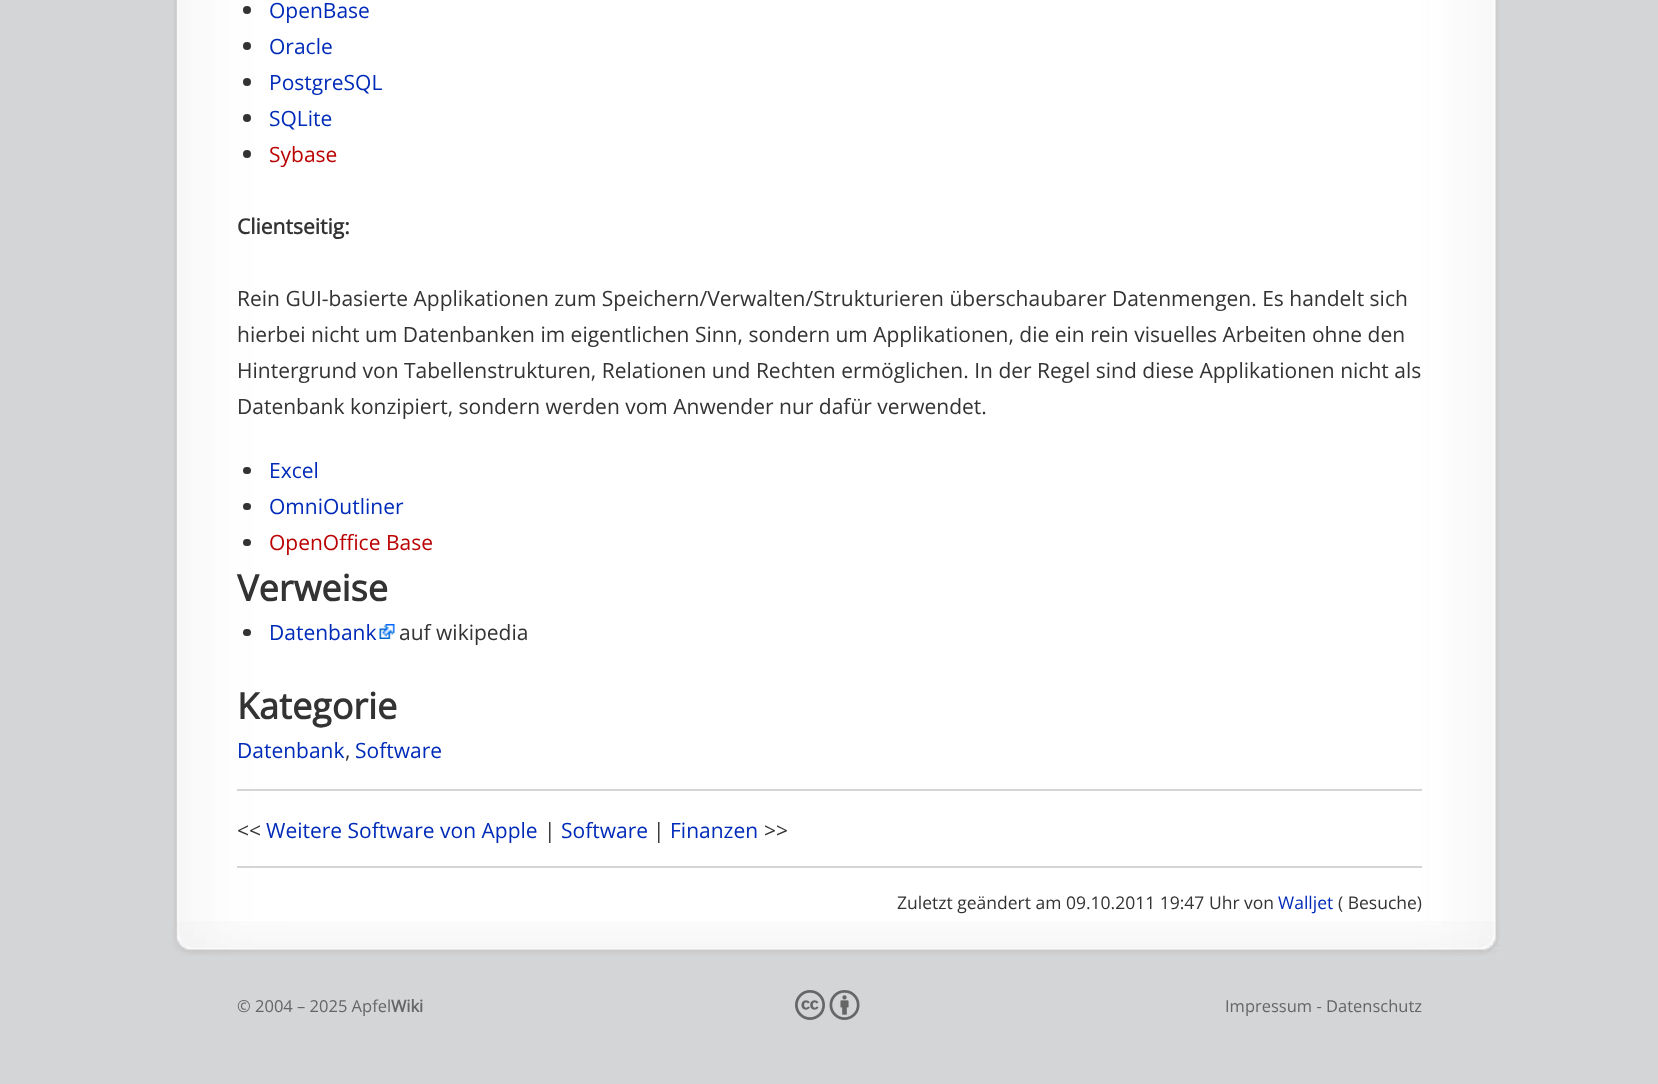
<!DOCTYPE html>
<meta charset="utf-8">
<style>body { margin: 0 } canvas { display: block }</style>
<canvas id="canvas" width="1658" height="1084"></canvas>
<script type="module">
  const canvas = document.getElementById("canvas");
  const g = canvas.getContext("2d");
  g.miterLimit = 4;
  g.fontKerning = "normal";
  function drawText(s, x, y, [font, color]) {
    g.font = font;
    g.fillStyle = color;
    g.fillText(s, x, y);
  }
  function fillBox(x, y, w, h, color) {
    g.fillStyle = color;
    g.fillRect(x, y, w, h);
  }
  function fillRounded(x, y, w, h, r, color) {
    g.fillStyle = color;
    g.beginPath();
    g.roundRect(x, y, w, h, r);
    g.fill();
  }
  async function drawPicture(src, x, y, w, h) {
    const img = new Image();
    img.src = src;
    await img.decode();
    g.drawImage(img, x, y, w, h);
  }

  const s1 = ["21px Open Sans", "#002BB8"];
  const s2 = ["21px Open Sans", "#BA0000"];
  const s3 = ["bold 21px Open Sans", "#333333"];
  const s4 = ["21px Open Sans", "#333333"];
  const s5 = ["bold 36px Open Sans", "#333333"];
  const s6 = ["17.5px Open Sans", "#333333"];
  const s7 = ["17.5px Open Sans", "#002BB8"];
  const s8 = ["16.5px Open Sans", "#666666"];
  const s9 = ["bold 16.5px Open Sans", "#666666"];

  fillBox(0, 0, 1658, 1084, "#D4D5D7");
  await drawPicture("pic1.png", 173, 0, 1327, 921);
  g.fillStyle = "#333333";
  g.beginPath();
  g.arc(247, 10, 4, 0, Math.PI * 2);
  g.fill();
  drawText("OpenBase", 269, 18, s1);
  g.fillStyle = "#333333";
  g.beginPath();
  g.arc(247, 46, 4, 0, Math.PI * 2);
  g.fill();
  drawText("Oracle", 269, 54, s1);
  g.fillStyle = "#333333";
  g.beginPath();
  g.arc(247, 82, 4, 0, Math.PI * 2);
  g.fill();
  drawText("PostgreSQL", 269, 90, s1);
  g.fillStyle = "#333333";
  g.beginPath();
  g.arc(247, 118, 4, 0, Math.PI * 2);
  g.fill();
  drawText("SQLite", 269, 126, s1);
  g.fillStyle = "#333333";
  g.beginPath();
  g.arc(247, 154, 4, 0, Math.PI * 2);
  g.fill();
  drawText("Sybase", 269, 162, s2);
  drawText("Clientseitig:", 237, 234, s3);
  drawText("Rein GUI-basierte Applikationen zum Speichern/Verwalten/Strukturieren überschaubarer Datenmengen. Es handelt sich", 237, 306, s4);
  drawText("hierbei nicht um Datenbanken im eigentlichen Sinn, sondern um Applikationen, die ein rein visuelles Arbeiten ohne den", 237, 342, s4);
  drawText("Hintergrund von Tabellenstrukturen, Relationen und Rechten ermöglichen. In der Regel sind diese Applikationen nicht als", 237, 378, s4);
  drawText("Datenbank konzipiert, sondern werden vom Anwender nur dafür verwendet.", 237, 414, s4);
  fillRounded(243, 467, 8, 7, 3.5, "#333333");
  drawText("Excel", 269, 478, s1);
  fillRounded(243, 503, 8, 7, 3.5, "#333333");
  drawText("OmniOutliner", 269, 514, s1);
  fillRounded(243, 539, 8, 7, 3.5, "#333333");
  drawText("OpenOffice Base", 269, 550, s2);
  drawText("Verweise", 237, 601, s5);
  fillRounded(243, 629, 8, 7, 3.5, "#333333");
  drawText("Datenbank", 269, 640, s1);
  await drawPicture("pic2.png", 379, 624, 16, 15);
  drawText("auf wikipedia", 399, 640, s4);
  drawText("Kategorie", 237, 719, s5);
  drawText("Datenbank", 237, 758, s1);
  drawText(",", 345, 758, s4);
  drawText("Software", 355, 758, s1);
  fillBox(237, 789, 1185, 2, "#D4D5D7");
  drawText("<<", 237, 838, s4);
  drawText("Weitere Software von Apple", 266, 838, s1);
  drawText("|", 544, 838, s4);
  drawText("Software", 561, 838, s1);
  drawText("|", 653, 838, s4);
  drawText("Finanzen", 670, 838, s1);
  drawText(">>", 764, 838, s4);
  fillBox(237, 866, 1185, 2, "#D4D5D7");
  drawText("Zuletzt geändert am 09.10.2011 19:47 Uhr", 897, 909, s6);
  drawText("von", 1244, 909, s6);
  drawText("Walljet", 1278, 909, s7);
  drawText("( Besuche)", 1338, 909, s6);
  await drawPicture("pic3.png", 172, 921, 1328, 35);
  drawText("© 2004 – 2025 Apfel", 237, 1012, s8);
  drawText("Wiki", 391, 1012, s9);
  await drawPicture("pic4.png", 795, 990, 65, 30);
  drawText("Impressum - Datenschutz", 1225, 1012, s8);
</script>
